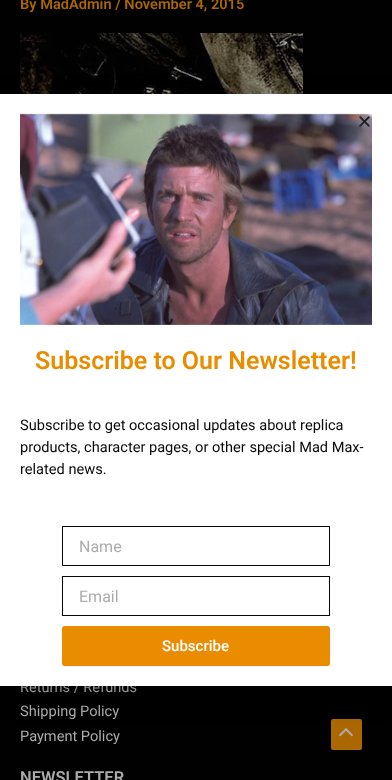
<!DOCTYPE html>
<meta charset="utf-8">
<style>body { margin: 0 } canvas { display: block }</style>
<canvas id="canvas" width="392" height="780"></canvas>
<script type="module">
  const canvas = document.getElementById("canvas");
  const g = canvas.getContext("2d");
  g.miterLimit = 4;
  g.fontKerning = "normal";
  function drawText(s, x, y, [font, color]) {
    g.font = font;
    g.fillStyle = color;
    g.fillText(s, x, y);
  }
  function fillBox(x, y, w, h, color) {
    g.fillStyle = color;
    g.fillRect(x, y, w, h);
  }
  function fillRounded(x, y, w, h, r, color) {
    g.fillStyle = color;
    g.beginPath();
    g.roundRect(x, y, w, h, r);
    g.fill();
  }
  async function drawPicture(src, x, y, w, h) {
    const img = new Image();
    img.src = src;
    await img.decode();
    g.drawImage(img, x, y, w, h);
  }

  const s1 = ["600 14.6px Roboto", "#AB6701"];
  const s2 = ["14.6px Roboto", "#ACACAC"];
  const s3 = ["600 16.5px Roboto", "#ACACAC"];
  const s4 = ["600 25px Roboto", "#E98C00"];
  const s5 = ["14.6px Roboto", "#0A0A0A"];
  const s6 = ["16px Roboto", "#ACACAC"];
  const s7 = ["500 15px Roboto", "#FFFFFF"];

  fillBox(0, 0, 392, 780, "#010101");
  drawText("By MadAdmin / November 4, 2015", 20, 9, s1);
  await drawPicture("pic1.png", 20, 33, 283, 61);
  drawText("Returns / Refunds", 20, 692, s2);
  drawText("Shipping Policy", 20, 716, s2);
  drawText("Payment Policy", 20, 741, s2);
  drawText("NEWSLETTER", 20, 783, s3);
  fillRounded(331, 719, 31, 31, 2, "#AB6701");
  await drawPicture("pic4.png", 339, 728, 15, 9);
  g.fillStyle = "rgba(0, 0, 0, 0.2)";
  g.filter = "blur(11.5px)";
  g.beginPath();
  g.rect(-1, 99, 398, 598);
  g.fill();
  g.filter = "none";
  fillBox(0, 94, 392, 592, "#FFFFFF");
  await drawPicture("pic3.png", 20, 113, 352, 212);
  await drawPicture("pic2.png", 359, 116, 11, 11);
  drawText("Subscribe to Our Newsletter!", 35, 369, s4);
  drawText("Subscribe to get occasional updates about replica", 20, 430, s5);
  drawText("products, character pages, or other special Mad Max-", 20, 452, s5);
  drawText("related news.", 20, 474, s5);
  g.strokeStyle = "#070707";
  g.strokeRect(62.5, 526.5, 267, 39);
  drawText("Name", 79, 552, s6);
  g.strokeRect(62.5, 576.5, 267, 39);
  drawText("Email", 79, 602, s6);
  g.fillStyle = "rgba(0, 0, 0, 0.05)";
  g.filter = "blur(1px)";
  g.beginPath();
  g.roundRect(62, 627, 268, 40, 3);
  g.fill();
  g.filter = "none";
  fillRounded(62, 626, 268, 40, 3, "#E98C00");
  drawText("Subscribe", 162, 651, s7);
</script>
